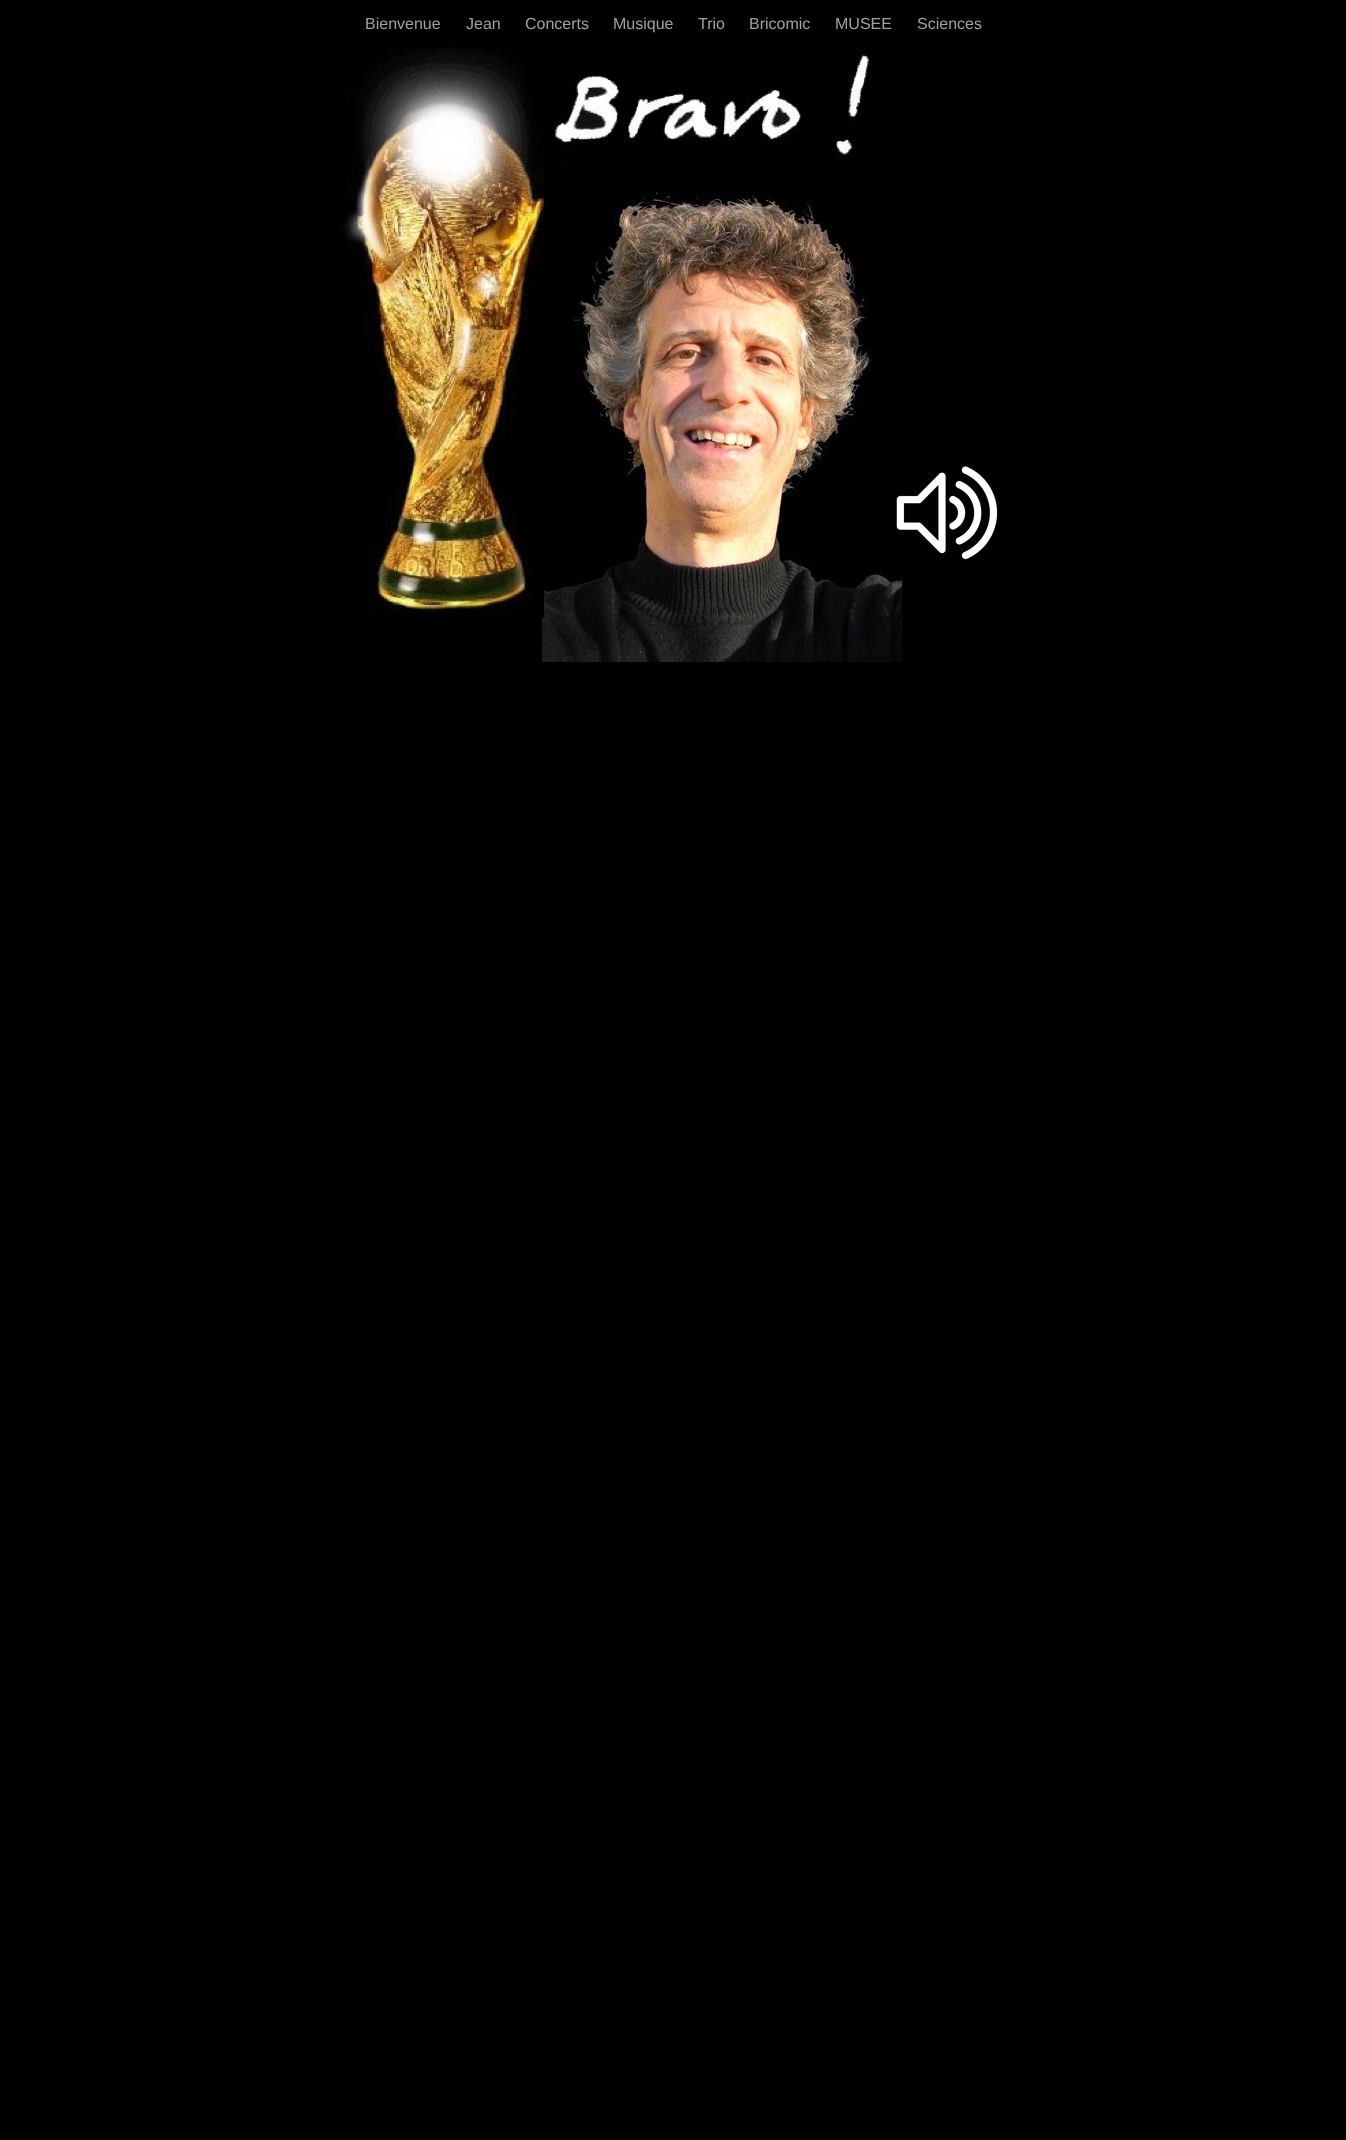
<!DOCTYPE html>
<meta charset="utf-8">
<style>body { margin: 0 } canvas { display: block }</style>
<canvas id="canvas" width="1346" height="2140"></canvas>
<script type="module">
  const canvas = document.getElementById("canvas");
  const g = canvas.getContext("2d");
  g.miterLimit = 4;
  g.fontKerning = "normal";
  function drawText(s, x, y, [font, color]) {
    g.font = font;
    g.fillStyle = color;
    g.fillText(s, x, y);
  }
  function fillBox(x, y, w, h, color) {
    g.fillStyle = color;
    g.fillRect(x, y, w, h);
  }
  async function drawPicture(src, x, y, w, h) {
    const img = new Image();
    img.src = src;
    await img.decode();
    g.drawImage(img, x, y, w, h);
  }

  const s1 = ["16px Liberation Sans", "#A1A1A1"];

  fillBox(0, 0, 1346, 2140, "#000000");
  drawText("Bienvenue", 365, 29, s1);
  drawText("Jean", 466, 29, s1);
  drawText("Concerts", 525, 29, s1);
  drawText("Musique", 613, 29, s1);
  drawText("Trio", 698, 29, s1);
  drawText("Bricomic", 749, 29, s1);
  drawText("MUSEE", 835, 29, s1);
  drawText("Sciences", 917, 29, s1);
  await drawPicture("pic2.png", 542, 147, 360, 515);
  await drawPicture("pic1.png", 342, 47, 202, 570);
  await drawPicture("pic3.png", 896, 466, 102, 94);
  await drawPicture("pic4.png", 552, 53, 320, 104);
</script>
